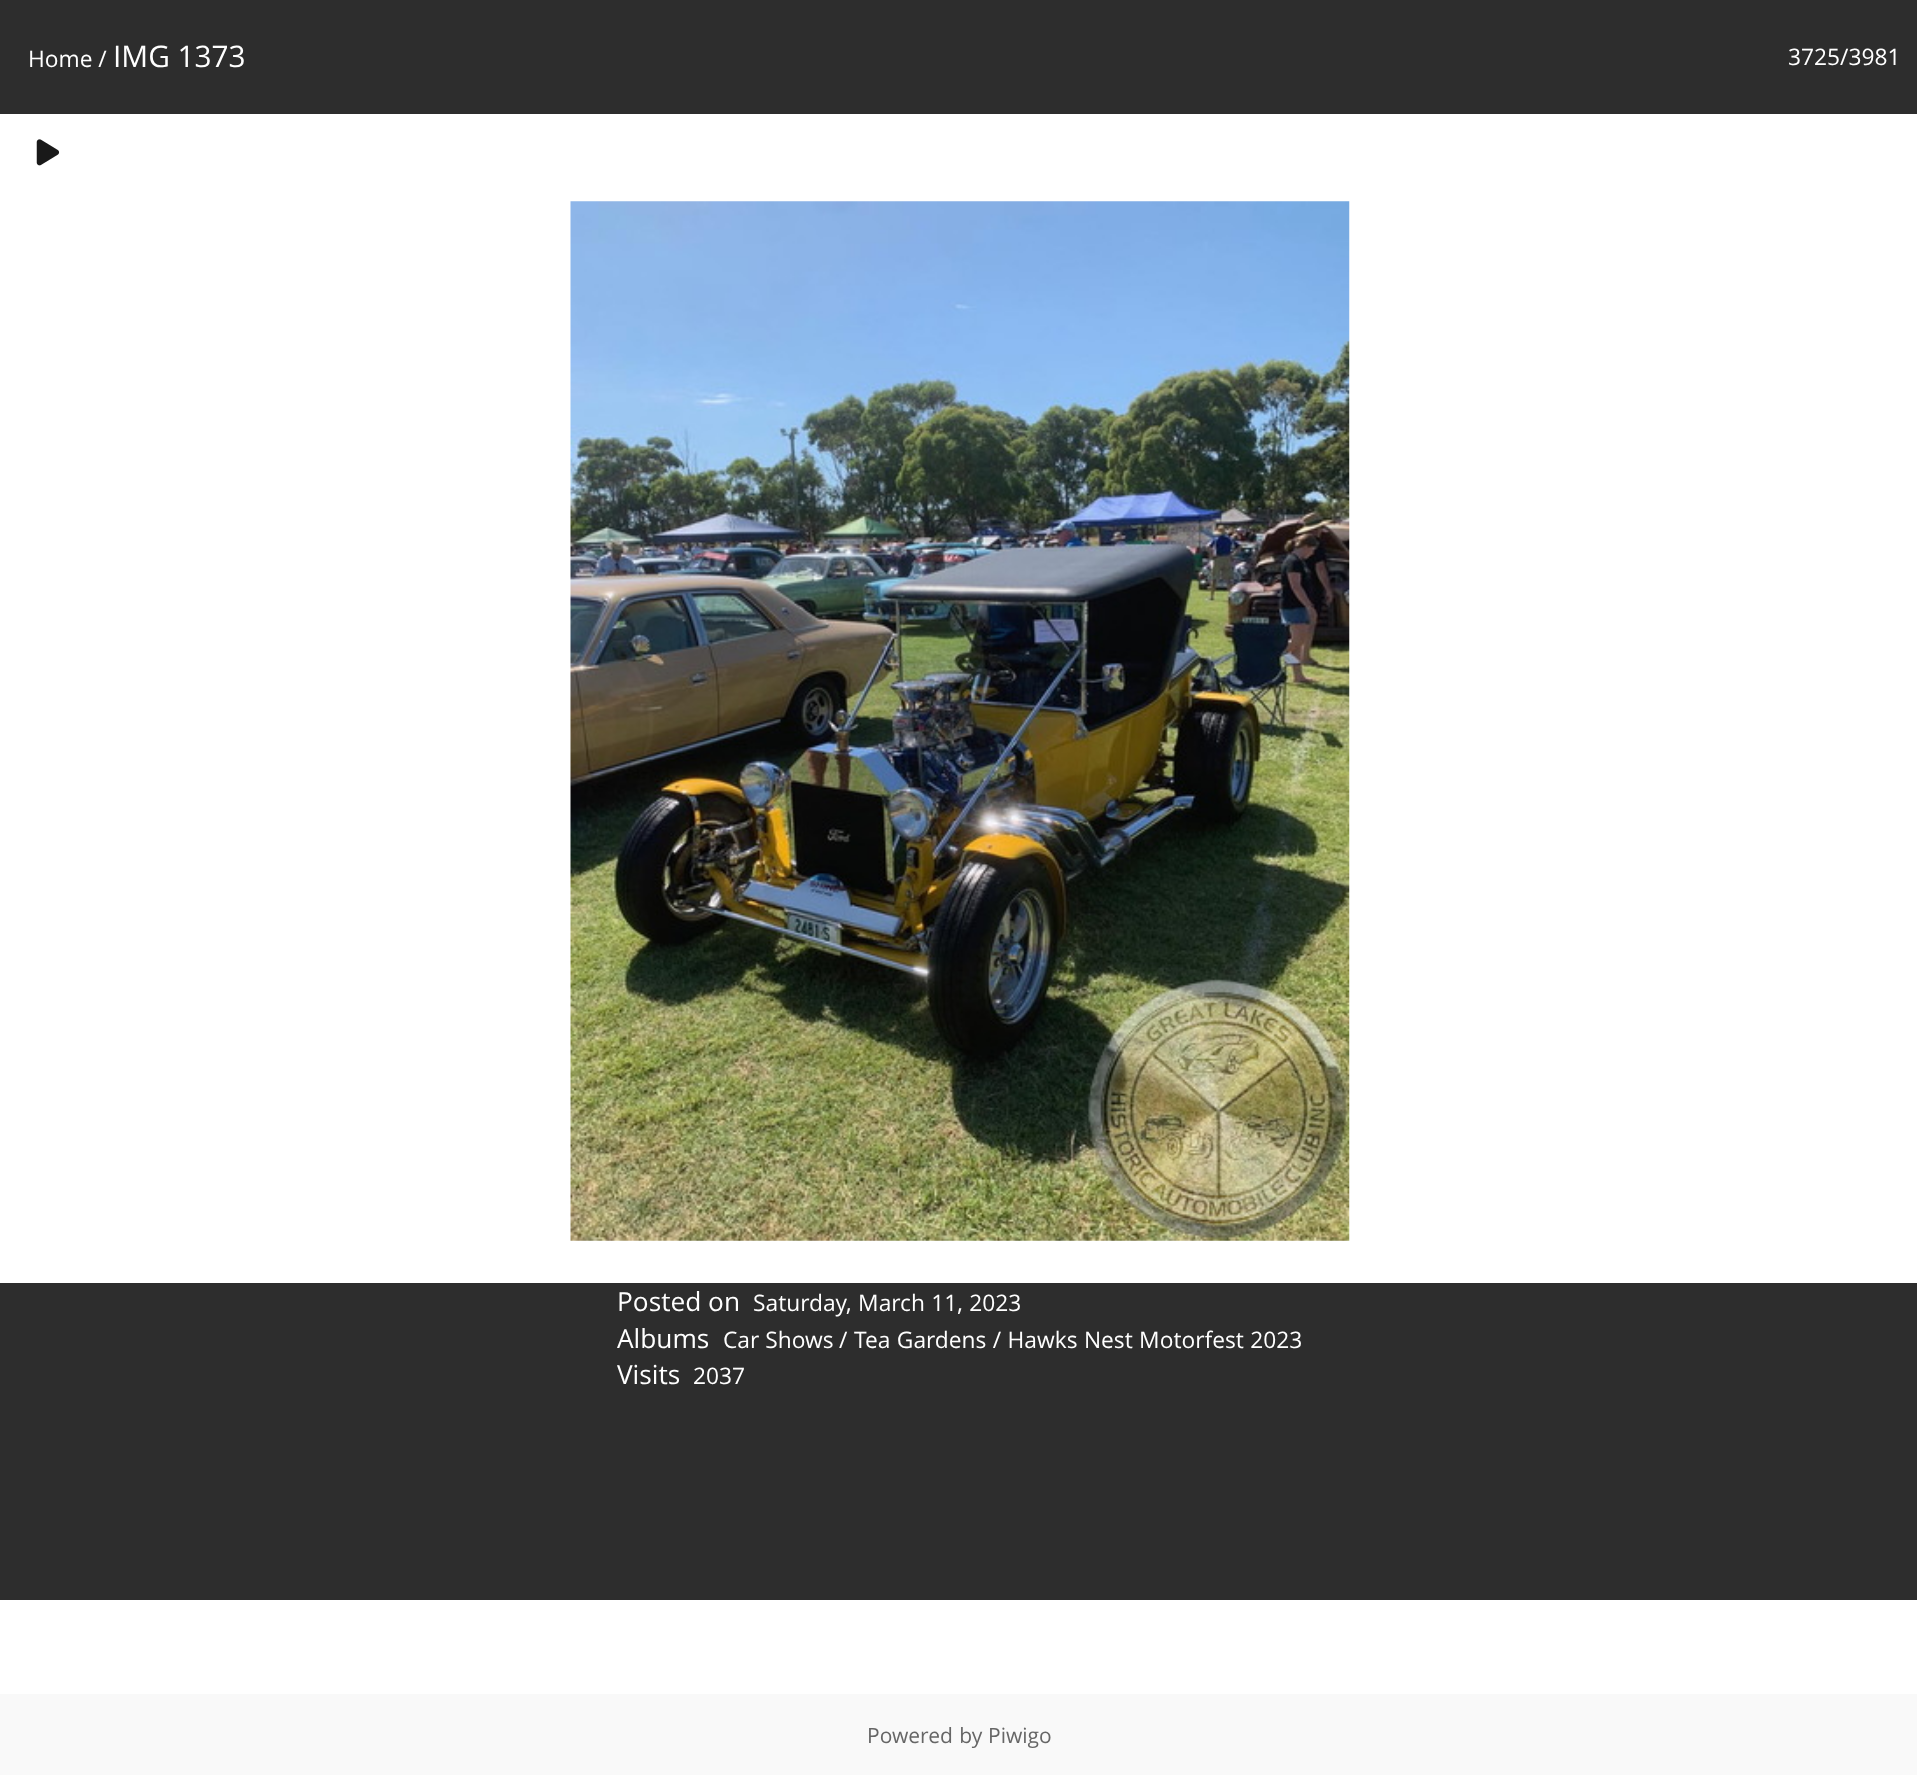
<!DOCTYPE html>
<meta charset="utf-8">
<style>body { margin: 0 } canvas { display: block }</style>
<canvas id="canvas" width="1917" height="1775"></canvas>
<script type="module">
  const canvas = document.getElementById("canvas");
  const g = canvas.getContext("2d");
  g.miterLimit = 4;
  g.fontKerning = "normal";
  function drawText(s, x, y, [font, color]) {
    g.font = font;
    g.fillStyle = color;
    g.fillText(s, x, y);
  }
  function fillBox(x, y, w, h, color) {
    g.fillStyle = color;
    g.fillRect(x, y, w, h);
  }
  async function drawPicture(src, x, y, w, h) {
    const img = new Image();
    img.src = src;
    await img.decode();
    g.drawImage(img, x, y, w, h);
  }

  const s1 = ["22.75px Open Sans", "#FFFFFF"];
  const s2 = ["29.75px Open Sans", "#FFFFFF"];
  const s3 = ["26.25px Open Sans", "#FFFFFF"];
  const s4 = ["21px Open Sans", "#666666"];

  fillBox(0, 0, 1917, 1775, "#FFFFFF");
  fillBox(0, 0, 1917, 114, "#2D2D2D");
  drawText("Home /", 28, 67, s1);
  drawText("IMG 1373", 113, 67, s2);
  drawText("3725/3981", 1788, 65, s1);
  await drawPicture("pic1.png", 36, 139, 24, 27);
  await drawPicture("pic2.png", 570, 201, 780, 1040);
  fillBox(0, 1283, 1917, 317, "#2D2D2D");
  drawText("Posted on", 617, 1311, s3);
  g.wordSpacing = "0.5px";
  drawText("Saturday, March 11, 2023", 753, 1311, s1);
  g.wordSpacing = "0px";
  drawText("Albums", 617, 1348, s3);
  drawText("Car Shows", 723, 1348, s1);
  drawText("/", 839, 1348, s1);
  g.wordSpacing = "0.5px";
  drawText("Tea Gardens / Hawks Nest Motorfest 2023", 854, 1348, s1);
  g.wordSpacing = "0px";
  drawText("Visits", 617, 1384, s3);
  drawText("2037", 693, 1384, s1);
  fillBox(0, 1694, 1917, 81, "#F9F9F9");
  g.wordSpacing = "1px";
  drawText("Powered by", 867, 1743, s4);
  g.wordSpacing = "0px";
  drawText("Piwigo", 988, 1743, s4);
</script>
